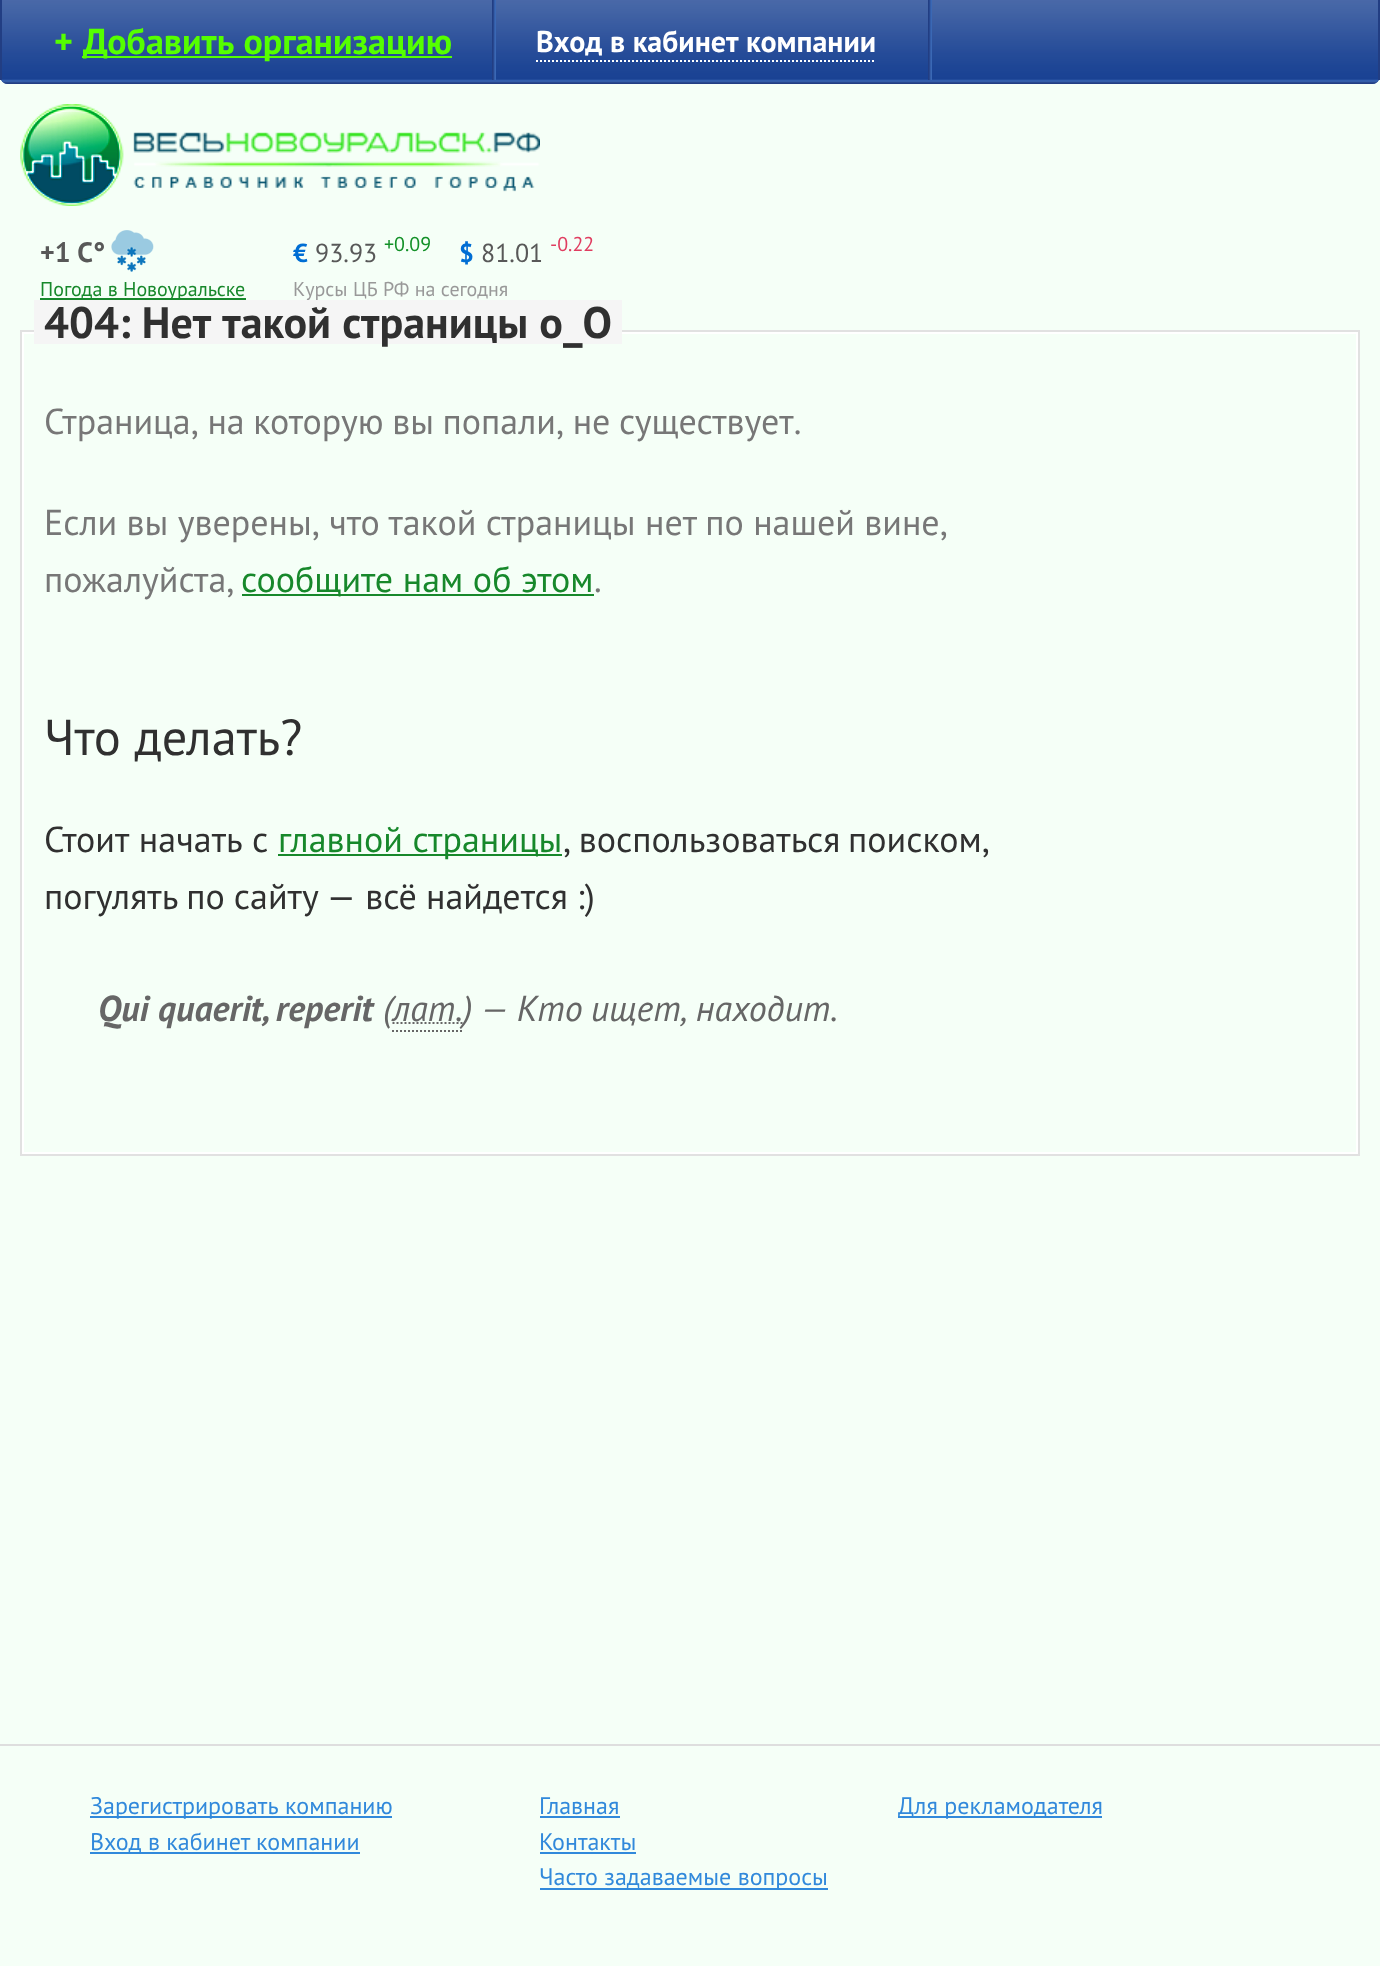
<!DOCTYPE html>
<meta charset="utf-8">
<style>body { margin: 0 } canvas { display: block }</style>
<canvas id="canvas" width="1380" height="1966"></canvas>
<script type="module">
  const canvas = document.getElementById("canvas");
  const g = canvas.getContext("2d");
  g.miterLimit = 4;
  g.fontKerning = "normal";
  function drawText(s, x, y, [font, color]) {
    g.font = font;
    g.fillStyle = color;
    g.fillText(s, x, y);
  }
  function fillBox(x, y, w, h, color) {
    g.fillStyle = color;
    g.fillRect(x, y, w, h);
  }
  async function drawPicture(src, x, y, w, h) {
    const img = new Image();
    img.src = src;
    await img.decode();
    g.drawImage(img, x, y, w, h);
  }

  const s1 = ["bold 36px PT Sans", "#55FF00"];
  const s2 = ["bold 30px PT Sans", "#FFFFFF"];
  const s3 = ["bold 28px PT Sans", "#585858"];
  const s4 = ["20px PT Sans", "#17882B"];
  const s5 = ["bold 26px PT Sans", "#006ED4"];
  const s6 = ["26px PT Sans", "#585858"];
  const s7 = ["20px PT Sans", "#139128"];
  const s8 = ["20px PT Sans", "#E03D60"];
  const s9 = ["20px PT Sans", "#999999"];
  const s10 = ["bold 44px PT Sans", "#303030"];
  const s11 = ["36px PT Sans", "#777777"];
  const s12 = ["36px PT Sans", "#17882B"];
  const s13 = ["50.5px PT Sans", "#303030"];
  const s14 = ["36px PT Sans", "#303030"];
  const s15 = ["italic bold 36px PT Sans", "#666666"];
  const s16 = ["italic 36px PT Sans", "#666666"];
  const s17 = ["24px PT Sans", "#3189DB"];

  fillBox(0, 0, 1380, 1966, "#F5FFF7");
  g.fillStyle = "#1A4293";
  g.beginPath();
  g.roundRect(0, 0, 1380, 84, [0, 0, 8, 8]);
  g.fill();
  await drawPicture("pic1.png", 1, 0, 1378, 84);
  fillBox(1378, 0, 2, 80, "#223E83");
  fillBox(0, 0, 2, 80, "#223E83");
  drawText("+", 54, 54, s1);
  fillBox(82, 56, 370, 2, "#55FF00");
  drawText("Добавить организацию", 83, 54, s1);
  await drawPicture("pic2.png", 492, 0, 4, 80);
  drawText("Вход в кабинет компании", 536, 52, s2);
  g.beginPath();
  g.moveTo(536, 61);
  g.lineTo(876, 61);
  g.strokeStyle = "#FFFFFF";
  g.lineWidth = 2;
  g.setLineDash([2, 2]);
  g.stroke();
  await drawPicture("pic2.png", 928, 0, 4, 80);
  await drawPicture("pic3.png", 20, 104, 520, 102);
  drawText("+1 C°", 40, 262, s3);
  await drawPicture("pic4.png", 111, 230, 43, 42);
  fillBox(40, 298, 206, 2, "#17882B");
  drawText("Погода в Новоуральске", 40, 296, s4);
  drawText("€", 293, 262, s5);
  drawText("93.93", 315, 262, s6);
  drawText("+0.09", 384, 251, s7);
  drawText("$", 459, 262, s5);
  drawText("81.01", 481, 262, s6);
  drawText("-0.22", 550, 251, s8);
  drawText("Курсы ЦБ РФ на сегодня", 293, 296, s9);
  g.strokeStyle = "#E1E1E1";
  g.setLineDash([]);
  g.strokeRect(21, 331, 1338, 824);
  g.strokeStyle = "#FFFFFF";
  g.strokeRect(23, 333, 1334, 820);
  fillBox(34, 300, 588, 44, "#F5F5F5");
  drawText("404: Нет такой страницы o_O", 44, 338, s10);
  g.wordSpacing = "-1px";
  drawText("Страница, на которую вы попали, не существует.", 44, 434, s11);
  g.wordSpacing = "-0.25px";
  drawText("Если вы уверены, что такой страницы нет по нашей вине,", 44, 535, s11);
  g.wordSpacing = "0px";
  drawText("пожалуйста,", 44, 592, s11);
  fillBox(242, 594, 352, 2, "#17882B");
  drawText("сообщите нам об этом", 241, 592, s12);
  drawText(".", 594, 592, s11);
  drawText("Что делать?", 44, 755, s13);
  g.wordSpacing = "1px";
  drawText("Стоит начать с", 44, 852, s14);
  fillBox(278, 854, 284, 2, "#17882B");
  g.wordSpacing = "0px";
  drawText("главной страницы", 278, 852, s12);
  g.wordSpacing = "-2px";
  drawText(", воспользоваться поиском,", 563, 852, s14);
  g.wordSpacing = "-0.5px";
  drawText("погулять по сайту — всё найдется :)", 44, 909, s14);
  g.wordSpacing = "0px";
  drawText("Qui quaerit, reperit", 98, 1021, s15);
  drawText("(лат.", 383, 1021, s16);
  g.beginPath();
  g.moveTo(392.5, 1023);
  g.lineTo(462.5, 1023);
  g.strokeStyle = "#666666";
  g.setLineDash([2, 2]);
  g.stroke();
  g.wordSpacing = "-1.5px";
  drawText(") — Кто ищет, находит.", 463, 1021, s16);
  g.beginPath();
  g.moveTo(392, 1031);
  g.lineTo(462, 1031);
  g.stroke();
  fillBox(0, 1744, 1380, 2, "#DEDEDE");
  fillBox(90, 1816, 302, 2, "#3189DB");
  g.wordSpacing = "1px";
  drawText("Зарегистрировать компанию", 90, 1814, s17);
  fillBox(90, 1852, 270, 2, "#3189DB");
  g.wordSpacing = "0px";
  drawText("Вход в кабинет компании", 90, 1850, s17);
  drawText("Главная", 539, 1814, s17);
  fillBox(540, 1816, 80, 2, "#3189DB");
  drawText("Контакты", 539, 1850, s17);
  fillBox(540, 1852, 96, 2, "#3189DB");
  fillBox(540, 1888, 288, 2, "#3189DB");
  drawText("Часто задаваемые вопросы", 539, 1885, s17);
  fillBox(898, 1816, 204, 2, "#3189DB");
  drawText("Для рекламодателя", 898, 1814, s17);
</script>
